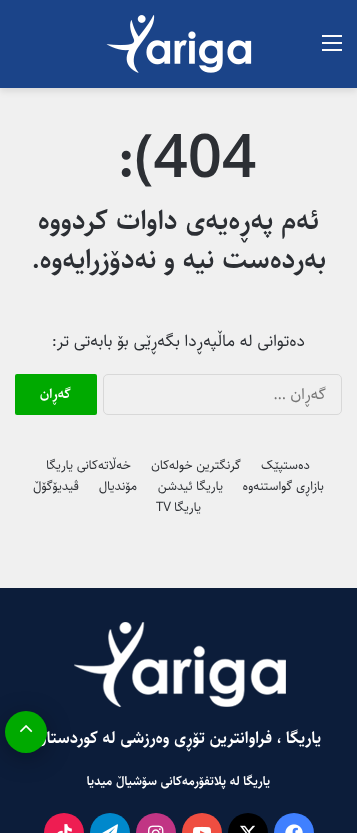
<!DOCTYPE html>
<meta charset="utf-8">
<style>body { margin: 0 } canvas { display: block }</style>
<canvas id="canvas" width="357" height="833"></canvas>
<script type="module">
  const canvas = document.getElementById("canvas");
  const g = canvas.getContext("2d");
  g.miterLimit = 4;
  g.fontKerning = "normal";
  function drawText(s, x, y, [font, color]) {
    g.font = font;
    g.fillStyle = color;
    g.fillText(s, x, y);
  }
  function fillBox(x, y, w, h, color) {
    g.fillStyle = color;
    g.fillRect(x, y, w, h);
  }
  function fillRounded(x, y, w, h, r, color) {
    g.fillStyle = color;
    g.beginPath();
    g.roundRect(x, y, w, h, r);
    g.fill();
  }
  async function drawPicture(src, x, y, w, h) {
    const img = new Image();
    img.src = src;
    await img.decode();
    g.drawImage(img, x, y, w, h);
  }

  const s1 = ["600 60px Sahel", "#2C2F34"];
  const s2 = ["600 28px Sahel", "#2C2F34"];
  const s3 = ["17px Sahel", "#2C2F34"];
  const s4 = ["16px Sahel", "#757575"];
  const s5 = ["600 14px Sahel", "#FFFFFF"];
  const s6 = ["13px Sahel", "#2C2F34"];
  const s7 = ["600 17px Sahel", "#FFFFFF"];
  const s8 = ["600 13px Sahel", "#FFFFFF"];

  fillBox(0, 0, 357, 833, "#F0F0F0");
  g.fillStyle = "rgba(0, 0, 0, 0.1)";
  g.filter = "blur(3.5px)";
  g.beginPath();
  g.rect(0, 3, 357, 88);
  g.fill();
  g.filter = "none";
  fillBox(0, 0, 357, 88, "#1B4489");
  fillBox(322, 42, 20, 2, "#FCFCFC");
  fillBox(322, 35, 20, 2, "#FCFCFC");
  fillBox(322, 49, 20, 2, "#FCFCFC");
  await drawPicture("pic1.png", 106, 15, 146, 58);
  drawText(":(404", 118, 177, s1);
  g.direction = "rtl";
  drawText("ئەم پەڕەیەی داوات کردووە", 319, 229, s2);
  drawText("بەردەست نیە و نەدۆزرایەوە.", 326, 268, s2);
  drawText("دەتوانى لە ماڵپەڕدا بگەڕێی بۆ بابەتى تر:", 305, 346, s3);
  g.beginPath();
  g.roundRect(103.5, 374.5, 238, 40, 4.5);
  g.strokeStyle = "#D8D8D8";
  g.stroke();
  drawText("گەڕان …", 326, 399, s4);
  fillRounded(15, 374, 82, 41, 2, "#00AA00");
  drawText("گەڕان", 71, 398, s5);
  drawText("دەستپێک", 310, 469, s6);
  drawText("گرنگترین خولەکان", 241, 469, s6);
  drawText("خەڵاتەکانی یاریگا", 131, 469, s6);
  drawText("بازاڕی گواستنەوە", 324, 490, s6);
  drawText("یاریگا ئیدشن", 223, 490, s6);
  drawText("مۆندیال", 137, 490, s6);
  drawText("ڤیدیۆگۆڵ", 79, 490, s6);
  drawText("یاریگا", 201, 511, s6);
  g.direction = "ltr";
  drawText("TV", 156, 511, s6);
  fillBox(0, 588, 357, 245, "#0C1D3A");
  await drawPicture("pic3.png", 74, 622, 212, 85);
  g.fillStyle = "rgba(0, 0, 0, 0.3)";
  g.filter = "blur(12.5px)";
  g.beginPath();
  g.roundRect(5, 716, 42, 42, 21);
  g.fill();
  g.filter = "none";
  g.direction = "rtl";
  drawText("یاریگا ، فراوانترین تۆڕی وەرزشی لە کوردستان", 321, 743, s7);
  g.fillStyle = "#00AA00";
  g.beginPath();
  g.arc(26, 732, 21, 0, Math.PI * 2);
  g.fill();
  await drawPicture("pic2.png", 20, 725, 13, 8);
  drawText("یاریگا لە پلاتفۆرمەکانی سۆشیاڵ میدیا", 270, 785, s8);
  g.fillStyle = "#4080FF";
  g.beginPath();
  g.arc(294, 833, 20, 0, Math.PI * 2);
  g.fill();
  await drawPicture("pic4.png", 285, 824, 18, 9);
  g.fillStyle = "#000000";
  g.beginPath();
  g.arc(248, 833, 20, 0, Math.PI * 2);
  g.fill();
  await drawPicture("pic5.png", 240, 825, 15, 8);
  g.fillStyle = "#EF4E41";
  g.beginPath();
  g.arc(202, 833, 20, 0, Math.PI * 2);
  g.fill();
  await drawPicture("pic6.png", 193, 826, 18, 7);
  g.fillStyle = "#C13584";
  g.beginPath();
  g.arc(156, 833, 20, 0, Math.PI * 2);
  g.fill();
  await drawPicture("pic7.png", 148, 825, 16, 8);
  g.fillStyle = "#0088CC";
  g.beginPath();
  g.arc(110, 833, 20, 0, Math.PI * 2);
  g.fill();
  await drawPicture("pic8.png", 102, 824, 16, 9);
  g.fillStyle = "#EE1D52";
  g.beginPath();
  g.arc(64, 833, 20, 0, Math.PI * 2);
  g.fill();
  await drawPicture("pic9.png", 57, 824, 15, 9);
</script>
